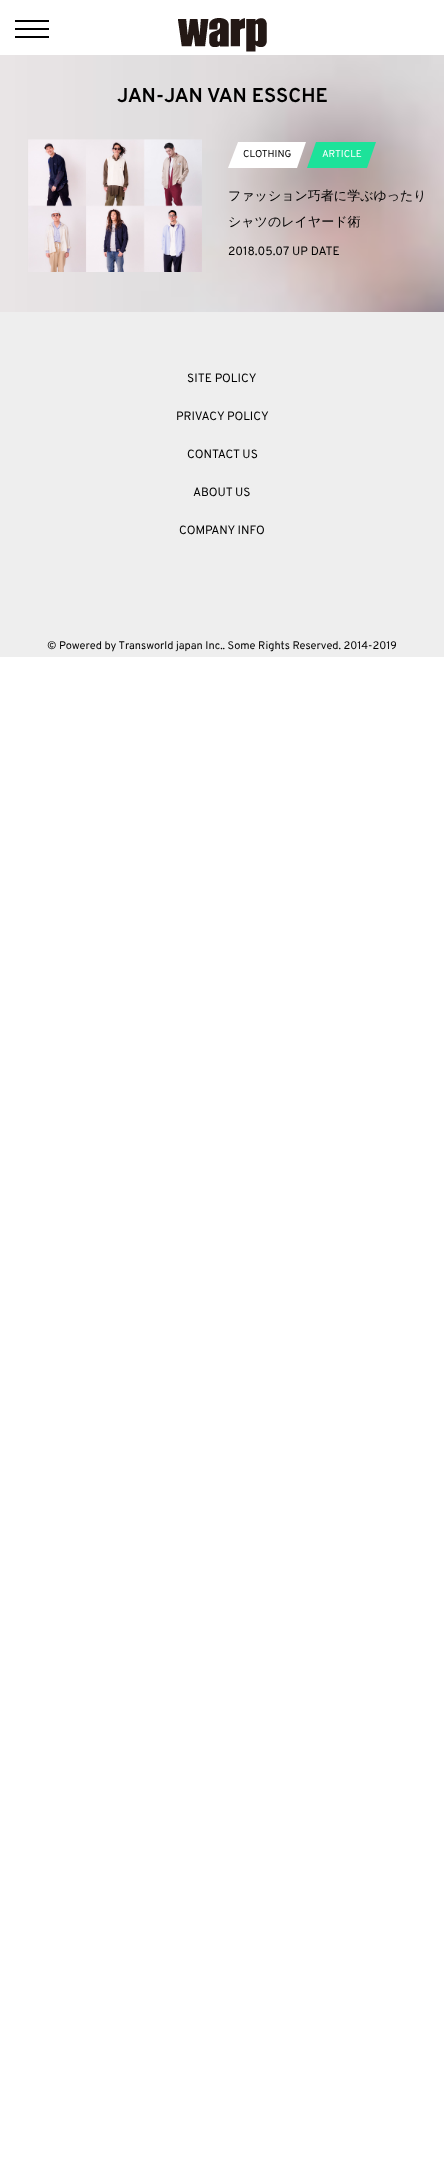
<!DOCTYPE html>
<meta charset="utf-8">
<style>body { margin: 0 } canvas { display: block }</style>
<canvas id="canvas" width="444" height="2179"></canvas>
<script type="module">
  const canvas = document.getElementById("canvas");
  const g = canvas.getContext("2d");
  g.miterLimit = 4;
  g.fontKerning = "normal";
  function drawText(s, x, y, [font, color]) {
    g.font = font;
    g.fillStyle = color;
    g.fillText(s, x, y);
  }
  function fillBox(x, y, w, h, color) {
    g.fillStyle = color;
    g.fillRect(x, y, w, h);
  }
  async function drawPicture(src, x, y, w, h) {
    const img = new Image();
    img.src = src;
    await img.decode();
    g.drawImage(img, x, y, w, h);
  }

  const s1 = ["bold 20px Overpass", "#000000"];
  const s2 = ["10px Overpass", "#000000"];
  const s3 = ["10px Overpass", "#FFFFFF"];
  const s4 = ["500 13px WenQuanYi Zen Hei", "#000000"];
  const s5 = ["12px Overpass", "#000000"];
  const s6 = ["11px Overpass", "#000000"];

  fillBox(0, 0, 444, 2179, "#FFFFFF");
  fillBox(15, 20, 34, 2, "#000000");
  fillBox(15, 28, 34, 2, "#000000");
  fillBox(15, 36, 34, 2, "#000000");
  await drawPicture("pic1.png", 178, 18, 89, 34);
  await drawPicture("pic2.png", 0, 55, 444, 257);
  drawText("JAN-JAN VAN ESSCHE", 117, 102, s1);
  await drawPicture("pic3.png", 28, 139, 174, 133);
  g.fillStyle = "#FFFFFF";
  g.beginPath();
  g.moveTo(238, 142);
  g.lineTo(306, 142);
  g.lineTo(297, 168);
  g.lineTo(228, 168);
  g.closePath();
  g.fill();
  drawText("CLOTHING", 243, 157, s2);
  g.fillStyle = "#1DE29A";
  g.beginPath();
  g.moveTo(316, 142);
  g.lineTo(376, 142);
  g.lineTo(367, 168);
  g.lineTo(307, 168);
  g.closePath();
  g.fill();
  drawText("ARTICLE", 322, 157, s3);
  drawText("ファッション巧者に学ぶゆったり", 228, 200, s4);
  drawText("シャツのレイヤード術", 228, 226, s4);
  drawText("2018.05.07 UP DATE", 228, 255, s5);
  fillBox(0, 312, 444, 345, "#EEEEEE");
  drawText("SITE POLICY", 187, 382, s5);
  drawText("PRIVACY POLICY", 176, 420, s5);
  drawText("CONTACT US", 187, 458, s5);
  drawText("ABOUT US", 193, 496, s5);
  drawText("COMPANY INFO", 179, 534, s5);
  drawText("© Powered by Transworld japan Inc.. Some Rights Reserved. 2014-2019", 47, 649, s6);
</script>
